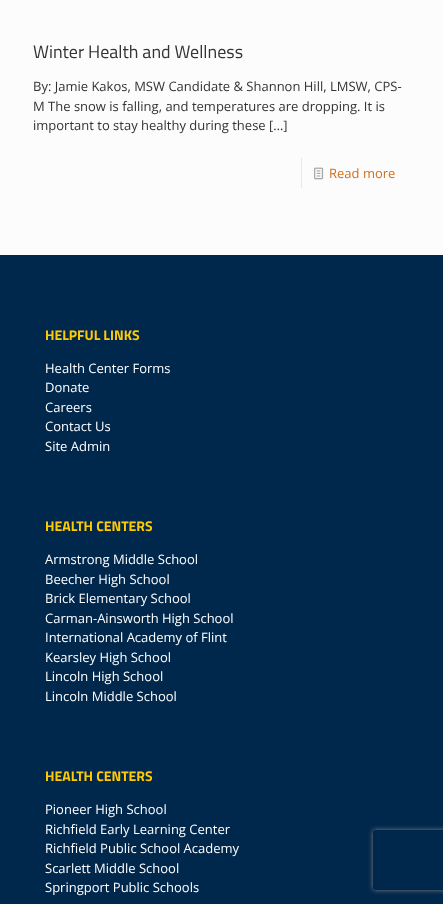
<!DOCTYPE html>
<meta charset="utf-8">
<style>body { margin: 0 } canvas { display: block }</style>
<canvas id="canvas" width="443" height="904"></canvas>
<script type="module">
  const canvas = document.getElementById("canvas");
  const g = canvas.getContext("2d");
  g.miterLimit = 4;
  g.fontKerning = "normal";
  function drawText(s, x, y, [font, color]) {
    g.font = font;
    g.fillStyle = color;
    g.fillText(s, x, y);
  }
  function fillBox(x, y, w, h, color) {
    g.fillStyle = color;
    g.fillRect(x, y, w, h);
  }
  async function drawPicture(src, x, y, w, h) {
    const img = new Image();
    img.src = src;
    await img.decode();
    g.drawImage(img, x, y, w, h);
  }

  const s1 = ["18px Titillium Web", "#333333"];
  const s2 = ["13px Open Sans", "#333333"];
  const s3 = ["13px Open Sans", "#D16F1A"];
  const s4 = ["bold 14px Titillium Web", "#FFCB05"];
  const s5 = ["13px Open Sans", "#FFFFFF"];

  fillBox(0, 0, 443, 904, "#FCFCFC");
  drawText("Winter Health and Wellness", 33, 58, s1);
  drawText("By: Jamie Kakos, MSW Candidate & Shannon Hill, LMSW, CPS-", 33, 91, s2);
  drawText("M The snow is falling, and temperatures are dropping. It is", 33, 111, s2);
  drawText("important to stay healthy during these […]", 33, 130, s2);
  fillBox(301, 158, 1, 30, "#E8E8E8");
  await drawPicture("pic1.png", 314, 167, 10, 13);
  drawText("Read more", 329, 178, s3);
  fillBox(0, 255, 443, 649, "#00274C");
  drawText("HELPFUL LINKS", 45, 340, s4);
  drawText("Health Center Forms", 45, 373, s5);
  drawText("Donate", 45, 392, s5);
  drawText("Careers", 45, 412, s5);
  drawText("Contact Us", 45, 431, s5);
  drawText("Site Admin", 45, 451, s5);
  drawText("HEALTH CENTERS", 45, 531, s4);
  drawText("Armstrong Middle School", 45, 564, s5);
  drawText("Beecher High School", 45, 584, s5);
  drawText("Brick Elementary School", 45, 603, s5);
  drawText("Carman-Ainsworth High School", 45, 623, s5);
  drawText("International Academy of Flint", 45, 642, s5);
  drawText("Kearsley High School", 45, 662, s5);
  drawText("Lincoln High School", 45, 681, s5);
  drawText("Lincoln Middle School", 45, 701, s5);
  drawText("HEALTH CENTERS", 45, 781, s4);
  drawText("Pioneer High School", 45, 814, s5);
  drawText("Richfield Early Learning Center", 45, 834, s5);
  drawText("Richfield Public School Academy", 45, 853, s5);
  drawText("Scarlett Middle School", 45, 873, s5);
  drawText("Springport Public Schools", 45, 892, s5);
  g.save();
  g.beginPath();
  g.moveTo(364, 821);
  g.lineTo(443, 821);
  g.lineTo(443, 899);
  g.lineTo(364, 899);
  g.closePath();
  g.moveTo(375, 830);
  g.lineTo(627, 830);
  g.bezierCurveTo(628, 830, 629, 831, 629, 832);
  g.lineTo(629, 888);
  g.bezierCurveTo(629, 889, 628, 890, 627, 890);
  g.lineTo(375, 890);
  g.bezierCurveTo(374, 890, 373, 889, 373, 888);
  g.lineTo(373, 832);
  g.bezierCurveTo(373, 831, 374, 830, 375, 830);
  g.closePath();
  g.clip("evenodd");
  g.fillStyle = "#808080";
  g.filter = "blur(2.5px)";
  g.beginPath();
  g.roundRect(373, 830, 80, 60, 2);
  g.fill();
  g.filter = "none";
  g.restore();
</script>
